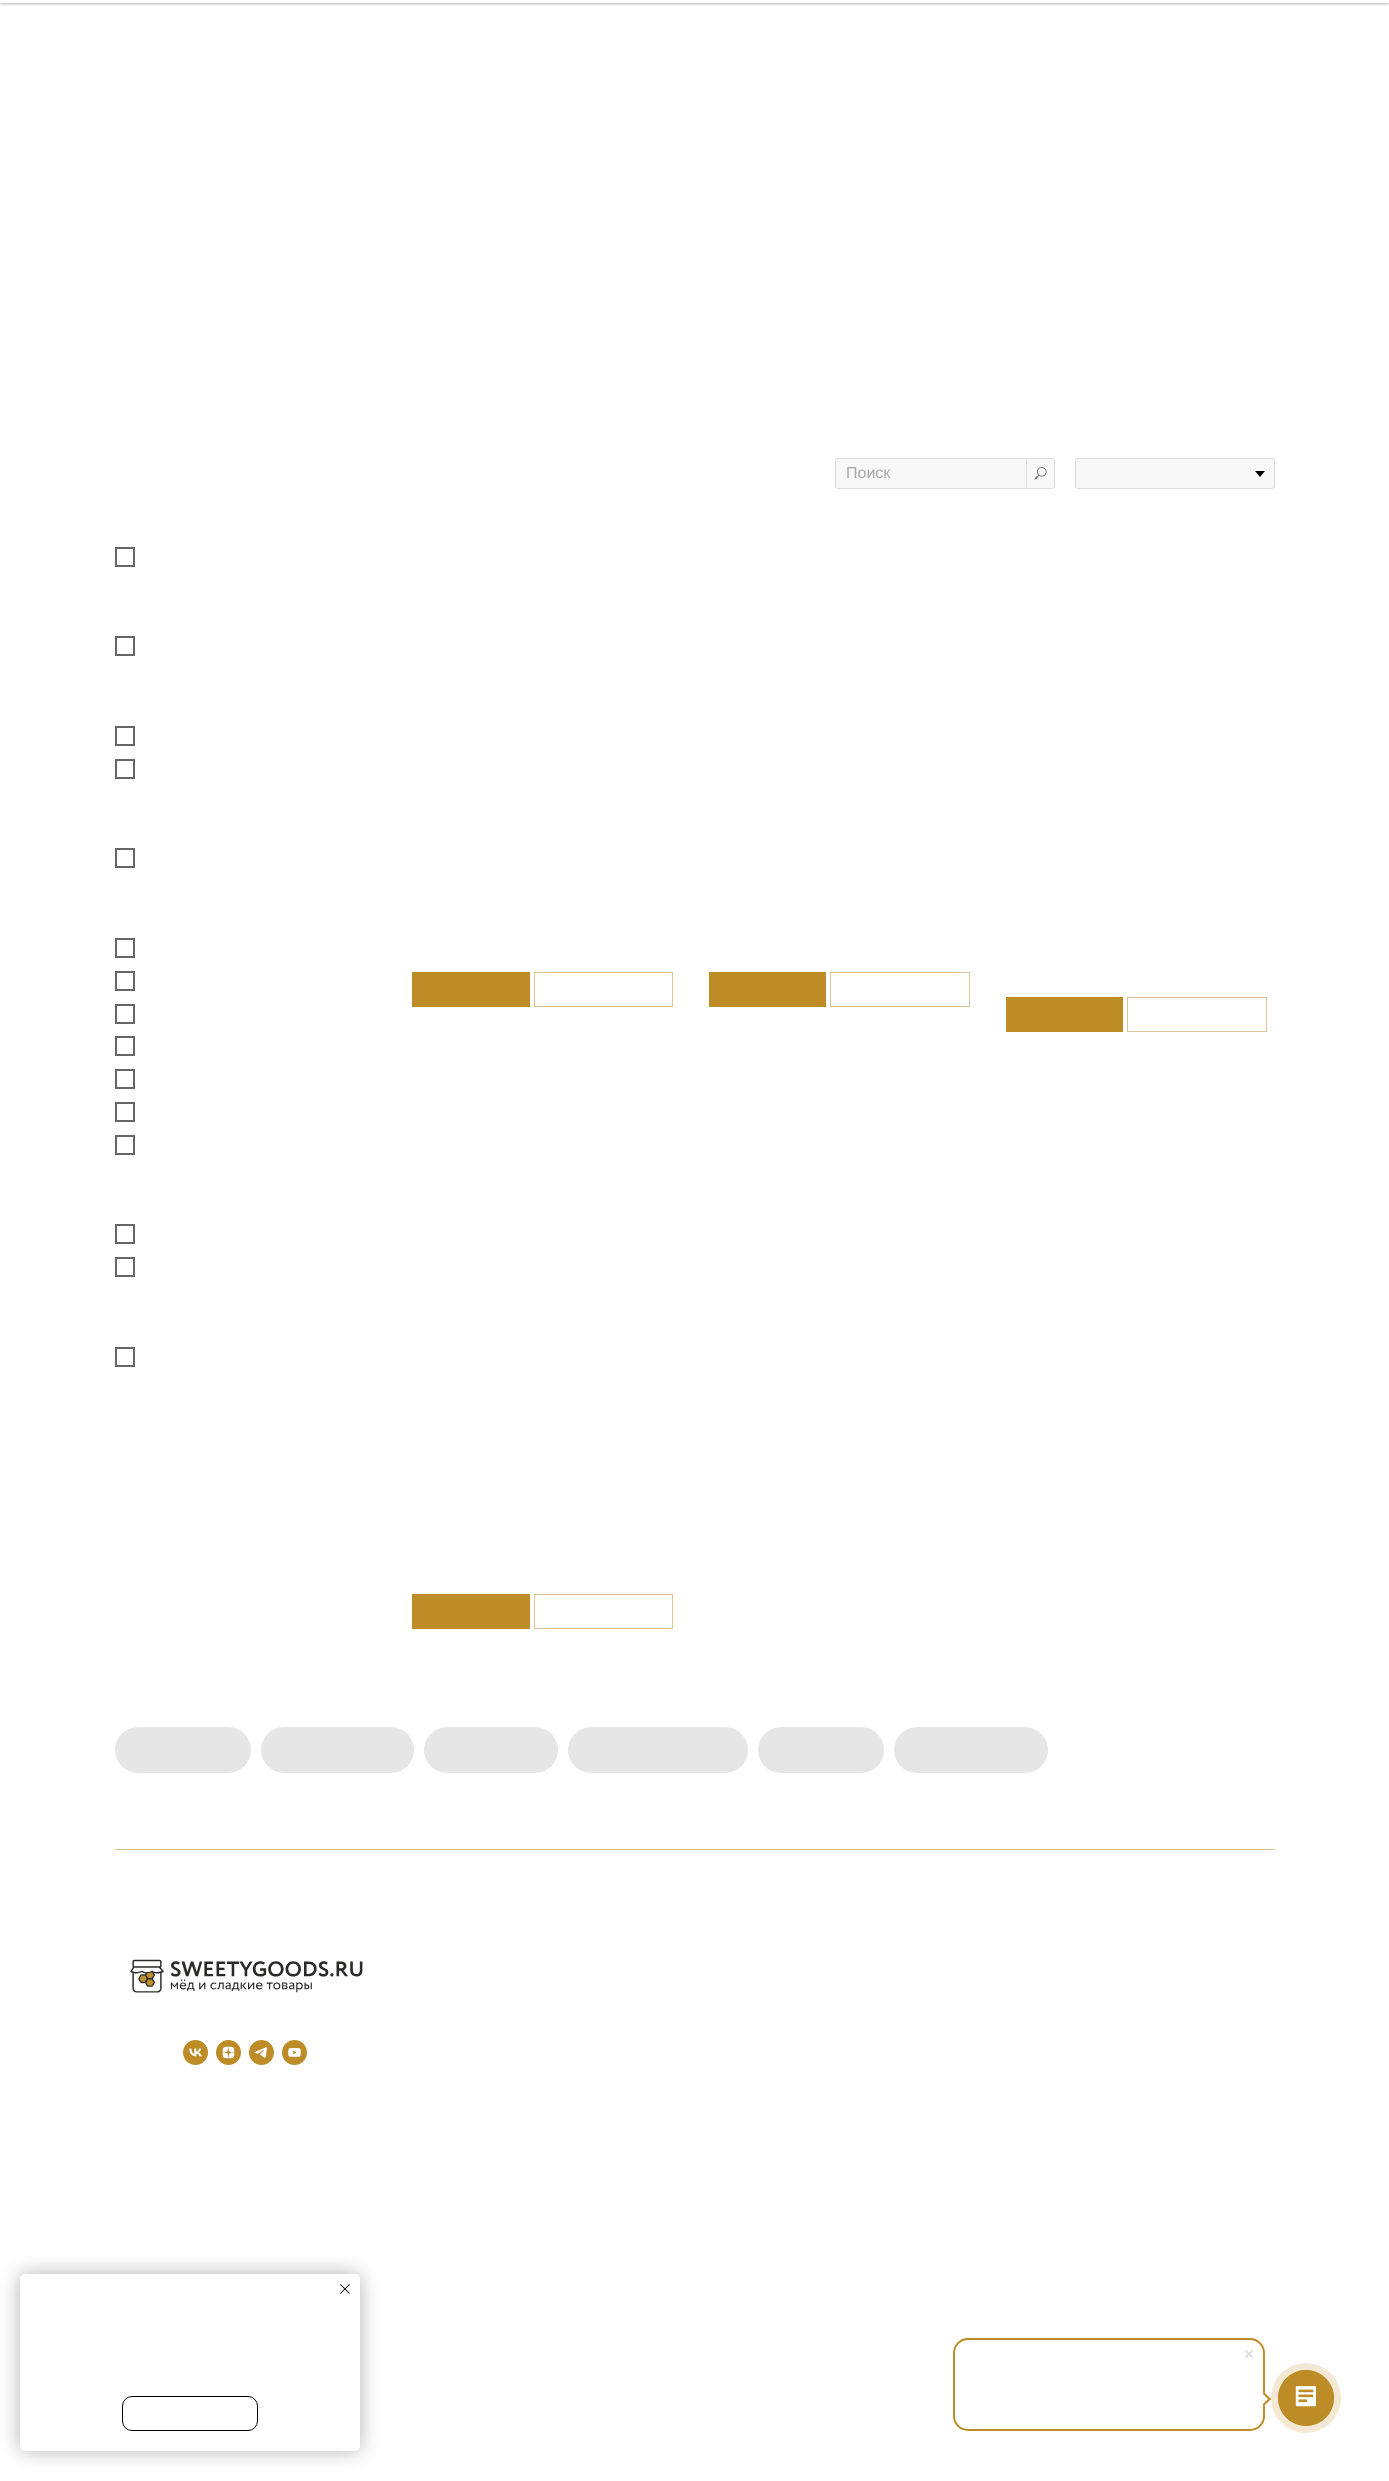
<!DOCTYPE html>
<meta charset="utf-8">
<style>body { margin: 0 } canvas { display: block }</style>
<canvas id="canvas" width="1389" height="2481"></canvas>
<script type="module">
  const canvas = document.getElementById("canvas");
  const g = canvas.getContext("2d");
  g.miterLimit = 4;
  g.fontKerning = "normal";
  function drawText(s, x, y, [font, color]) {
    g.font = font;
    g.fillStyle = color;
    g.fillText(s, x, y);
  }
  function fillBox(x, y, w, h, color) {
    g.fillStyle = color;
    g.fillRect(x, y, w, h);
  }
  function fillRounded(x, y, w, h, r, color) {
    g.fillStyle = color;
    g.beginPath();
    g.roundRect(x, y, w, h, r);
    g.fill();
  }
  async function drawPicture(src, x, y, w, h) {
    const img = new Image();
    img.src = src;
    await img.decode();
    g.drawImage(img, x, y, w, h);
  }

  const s1 = ["16px Liberation Sans", "#AAAAAA"];

  fillBox(0, 0, 1389, 2481, "#FFFFFF");
  g.save();
  g.beginPath();
  g.rect(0, 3, 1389, 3);
  g.clip();
  g.fillStyle = "rgba(0, 0, 0, 0.3)";
  g.filter = "blur(1.5px)";
  g.beginPath();
  g.rect(0, -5, 1389, 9);
  g.fill();
  g.filter = "none";
  g.restore();
  g.fillStyle = "#F8F8F8";
  g.beginPath();
  g.roundRect(835.5, 458.5, 219, 30, 2.5);
  g.fill();
  g.strokeStyle = "#DDDDDD";
  g.stroke();
  drawText("Поиск", 846, 478, s1);
  fillBox(1026, 458, 1, 31, "#DDDDDD");
  await drawPicture("pic1.png", 1034, 467, 13, 13);
  g.fillStyle = "#F8F8F8";
  g.beginPath();
  g.roundRect(1075.5, 458.5, 199, 30, 2.5);
  g.fill();
  g.stroke();
  g.fillStyle = "#000000";
  g.beginPath();
  g.moveTo(1255, 471);
  g.lineTo(1265, 471);
  g.lineTo(1260, 477);
  g.closePath();
  g.fill();
  g.strokeStyle = "#666666";
  g.lineWidth = 2;
  g.strokeRect(116, 548, 18, 18);
  g.strokeRect(116, 637, 18, 18);
  g.strokeRect(116, 727, 18, 18);
  g.strokeRect(116, 760, 18, 18);
  g.strokeRect(116, 849, 18, 18);
  g.strokeRect(116, 939, 18, 18);
  g.strokeRect(116, 972, 18, 18);
  g.strokeRect(116, 1005, 18, 18);
  g.strokeRect(116, 1037, 18, 18);
  g.strokeRect(116, 1070, 18, 18);
  g.strokeRect(116, 1103, 18, 18);
  g.strokeRect(116, 1136, 18, 18);
  g.strokeRect(116, 1225, 18, 18);
  g.strokeRect(116, 1258, 18, 18);
  g.strokeRect(116, 1348, 18, 18);
  fillBox(412, 972, 118, 35, "#BD8C27");
  g.strokeStyle = "#DEC693";
  g.lineWidth = 1;
  g.strokeRect(534.5, 972.5, 138, 34);
  fillBox(709, 972, 117, 35, "#BD8C27");
  g.strokeRect(830.5, 972.5, 139, 34);
  fillBox(1006, 997, 117, 35, "#BD8C27");
  g.strokeRect(1127.5, 997.5, 139, 34);
  fillBox(412, 1594, 118, 35, "#BD8C27");
  g.strokeRect(534.5, 1594.5, 138, 34);
  fillRounded(115, 1727, 136, 46, 23, "#E6E6E6");
  fillRounded(261, 1727, 153, 46, 23, "#E6E6E6");
  fillRounded(424, 1727, 134, 46, 23, "#E6E6E6");
  fillRounded(568, 1727, 180, 46, 23, "#E6E6E6");
  fillRounded(758, 1727, 126, 46, 23, "#E6E6E6");
  fillRounded(894, 1727, 154, 46, 23, "#E6E6E6");
  fillBox(115, 1849, 1160, 1, "#DEC693");
  await drawPicture("pic2.png", 130, 1959, 233, 34);
  await drawPicture("pic3.png", 183, 2040, 25, 25);
  await drawPicture("pic4.png", 216, 2040, 25, 25);
  await drawPicture("pic5.png", 249, 2040, 25, 25);
  await drawPicture("pic6.png", 282, 2040, 25, 25);
  g.fillStyle = "rgba(0, 0, 0, 0.3)";
  g.filter = "blur(10px)";
  g.beginPath();
  g.roundRect(20, 2274, 340, 177, 5);
  g.fill();
  g.filter = "none";
  fillRounded(20, 2274, 340, 177, 5, "#FFFFFF");
  await drawPicture("pic7.png", 340, 2284, 10, 10);
  g.beginPath();
  g.roundRect(122.5, 2396.5, 135, 34, 9.5);
  g.strokeStyle = "#000000";
  g.stroke();
  g.beginPath();
  g.roundRect(954, 2339, 310, 91, 14);
  g.strokeStyle = "#BD8C27";
  g.lineWidth = 2;
  g.stroke();
  await drawPicture("pic8.png", 1245, 2350, 8, 8);
  g.beginPath();
  g.moveTo(1257, 2399);
  g.lineTo(1264, 2392);
  g.lineTo(1271, 2399);
  g.lineTo(1264, 2406);
  g.closePath();
  g.fill();
  g.fillStyle = "#BD8C27";
  g.beginPath();
  g.moveTo(1262.5, 2393.5);
  g.lineTo(1264, 2392);
  g.lineTo(1271, 2399);
  g.lineTo(1269.5, 2400.5);
  g.closePath();
  g.fill();
  g.beginPath();
  g.moveTo(1262.5, 2404.5);
  g.lineTo(1269.5, 2397.5);
  g.lineTo(1271, 2399);
  g.lineTo(1264, 2406);
  g.closePath();
  g.fill();
  g.fillStyle = "#F2E8D4";
  g.beginPath();
  g.arc(1306, 2398, 35, 0, Math.PI * 2);
  g.fill();
  g.beginPath();
  g.arc(1306, 2398, 27.6, 0, Math.PI * 2);
  g.lineWidth = 0.8;
  g.stroke();
  g.fillStyle = "#BD8C27";
  g.beginPath();
  g.arc(1306, 2398, 28, 0, Math.PI * 2);
  g.fill();
  await drawPicture("pic9.png", 1295, 2386, 21, 21);
</script>
